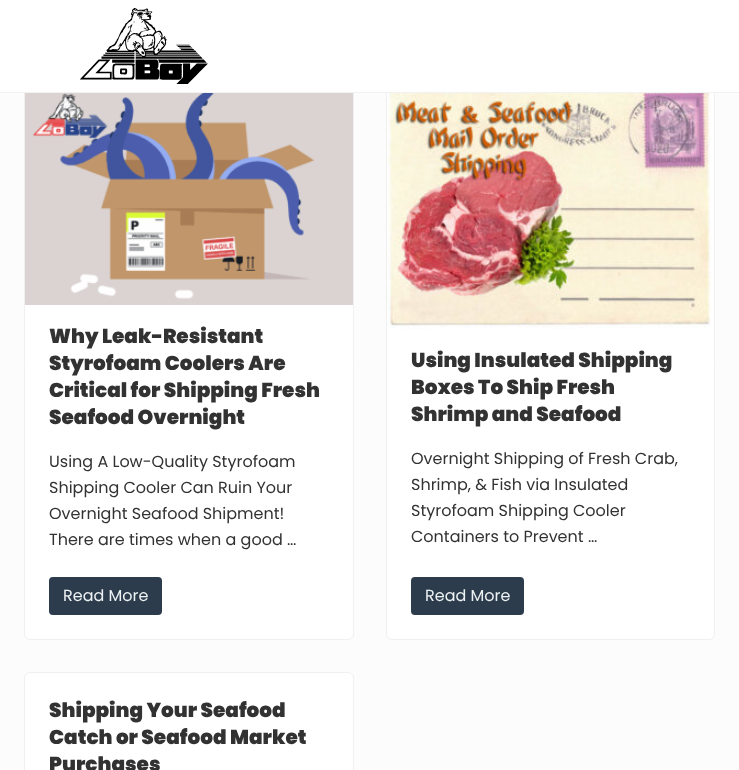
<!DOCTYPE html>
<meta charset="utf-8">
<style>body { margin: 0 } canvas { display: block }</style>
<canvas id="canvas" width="739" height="770"></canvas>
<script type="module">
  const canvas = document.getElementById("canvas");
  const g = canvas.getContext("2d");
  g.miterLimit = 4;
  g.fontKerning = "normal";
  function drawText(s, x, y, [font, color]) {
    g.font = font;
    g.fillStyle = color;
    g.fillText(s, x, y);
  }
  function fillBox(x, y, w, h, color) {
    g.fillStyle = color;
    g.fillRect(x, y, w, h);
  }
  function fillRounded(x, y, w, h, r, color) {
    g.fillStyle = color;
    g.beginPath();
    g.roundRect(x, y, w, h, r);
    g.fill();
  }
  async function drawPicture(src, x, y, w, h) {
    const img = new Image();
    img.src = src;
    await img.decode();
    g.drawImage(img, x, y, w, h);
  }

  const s1 = ["900 20px Poppins", "#323232"];
  const s2 = ["16px Poppins", "#323232"];
  const s3 = ["16px Poppins", "#EDF2F4"];

  fillBox(0, 0, 739, 770, "#FCFCFC");
  g.fillStyle = "#FFFFFF";
  g.beginPath();
  g.roundRect(24.5, 85.5, 329, 554, 5.5);
  g.fill();
  g.strokeStyle = "#F0F0F0";
  g.stroke();
  g.beginPath();
  g.roundRect(386.5, 85.5, 328, 554, 5.5);
  g.fill();
  g.stroke();
  fillBox(0, 0, 739, 92, "#FFFFFF");
  fillBox(0, 92, 739, 1, "#F2F2F2");
  await drawPicture("pic1.png", 80, 8, 128, 76);
  await drawPicture("pic2.png", 25, 93, 328, 212);
  drawText("Why Leak-Resistant", 49, 343, s1);
  drawText("Styrofoam Coolers Are", 49, 370, s1);
  drawText("Critical for Shipping Fresh", 49, 397, s1);
  drawText("Seafood Overnight", 49, 424, s1);
  drawText("Using A Low-Quality Styrofoam", 49, 467, s2);
  drawText("Shipping Cooler Can Ruin Your", 49, 493, s2);
  drawText("Overnight Seafood Shipment!", 49, 519, s2);
  drawText("There are times when a good …", 49, 545, s2);
  fillRounded(49, 577, 113, 38, 4, "#2C3C4C");
  drawText("Read More", 63, 601, s3);
  await drawPicture("pic3.png", 387, 93, 324, 236);
  drawText("Using Insulated Shipping", 411, 367, s1);
  drawText("Boxes To Ship Fresh", 411, 394, s1);
  drawText("Shrimp and Seafood", 411, 421, s1);
  drawText("Overnight Shipping of Fresh Crab,", 411, 464, s2);
  drawText("Shrimp, & Fish via Insulated", 411, 490, s2);
  drawText("Styrofoam Shipping Cooler", 411, 516, s2);
  drawText("Containers to Prevent …", 411, 542, s2);
  fillRounded(411, 577, 113, 38, 4, "#2C3C4C");
  drawText("Read More", 425, 601, s3);
  g.fillStyle = "#FFFFFF";
  g.beginPath();
  g.roundRect(24.5, 672.5, 329, 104, 5.5);
  g.fill();
  g.stroke();
  drawText("Shipping Your Seafood", 49, 717, s1);
  drawText("Catch or Seafood Market", 49, 744, s1);
  drawText("Purchases", 49, 771, s1);
</script>
